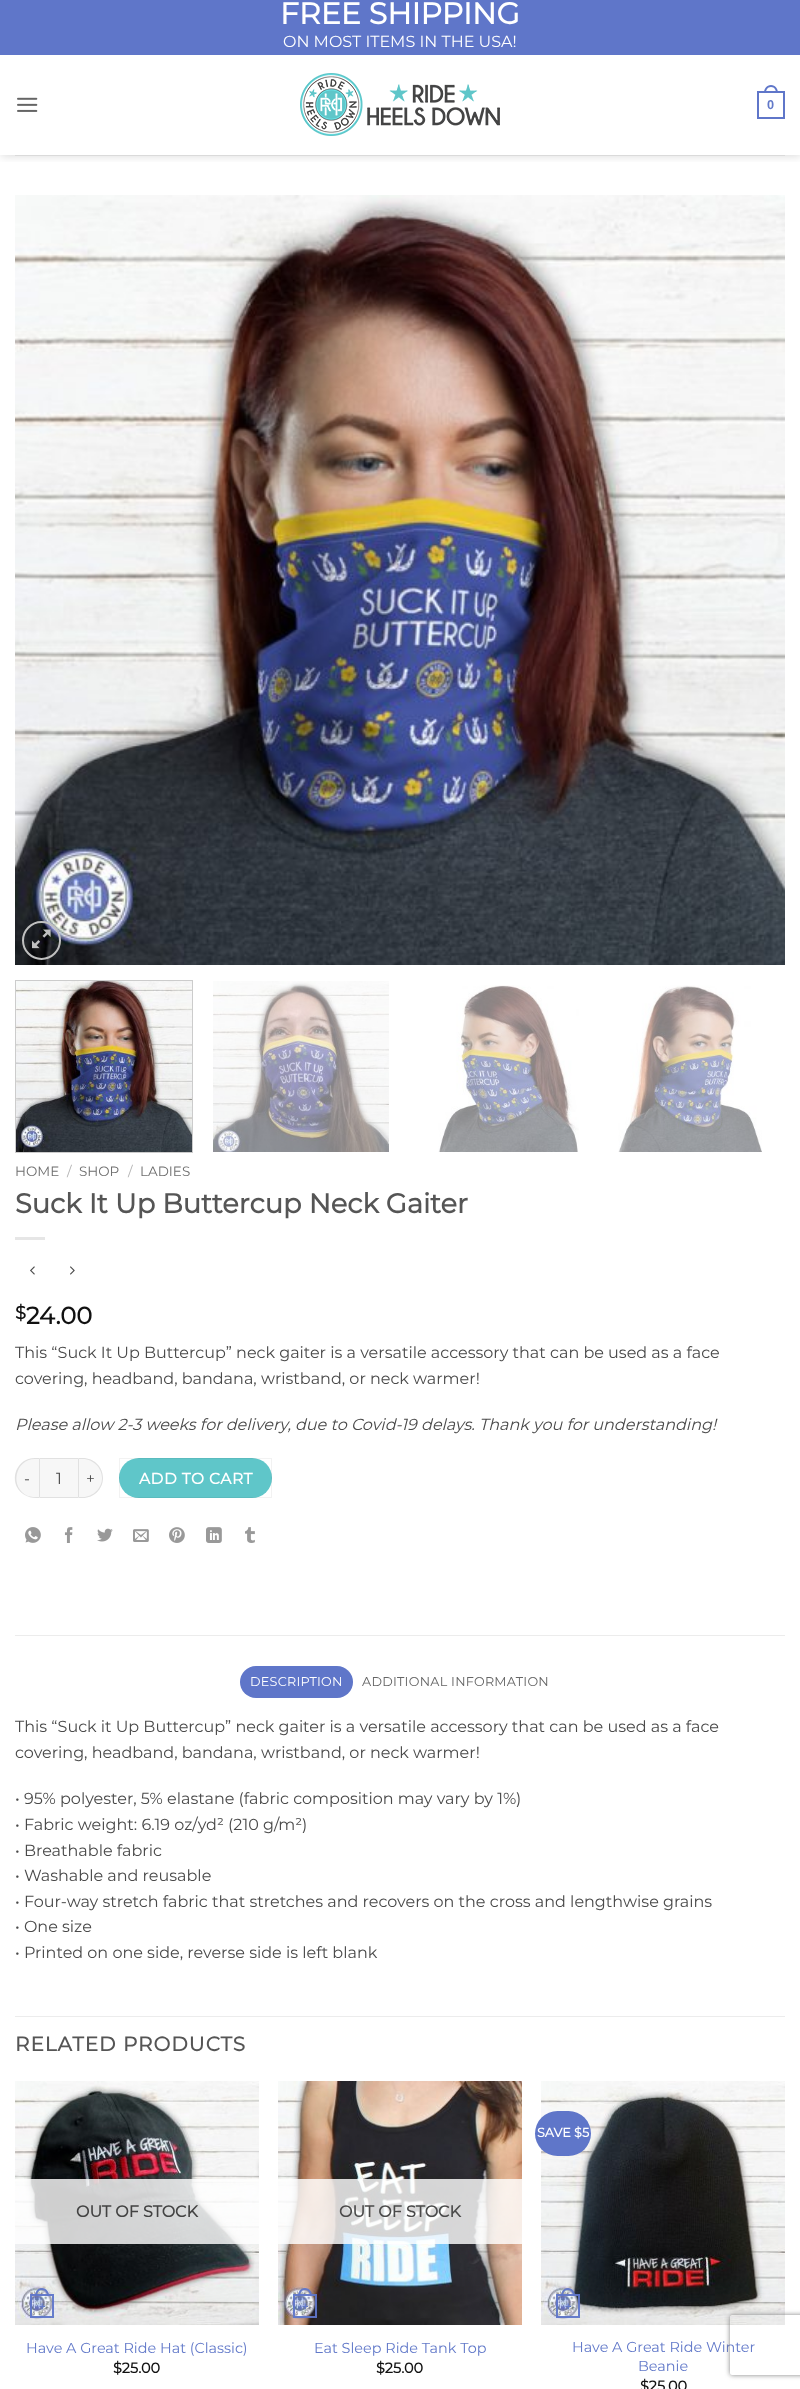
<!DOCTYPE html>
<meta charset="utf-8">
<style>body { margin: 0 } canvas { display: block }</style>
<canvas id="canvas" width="800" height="2389"></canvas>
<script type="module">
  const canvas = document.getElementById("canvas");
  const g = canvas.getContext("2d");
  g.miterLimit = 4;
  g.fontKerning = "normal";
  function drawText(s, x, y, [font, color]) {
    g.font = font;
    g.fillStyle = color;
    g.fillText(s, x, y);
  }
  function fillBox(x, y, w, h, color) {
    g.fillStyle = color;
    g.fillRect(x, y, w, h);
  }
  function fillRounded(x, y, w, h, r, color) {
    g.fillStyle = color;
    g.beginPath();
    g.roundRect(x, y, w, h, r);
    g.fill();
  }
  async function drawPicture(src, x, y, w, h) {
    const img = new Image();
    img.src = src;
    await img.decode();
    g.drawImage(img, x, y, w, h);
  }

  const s1 = ["bold 30px Montserrat", "#FFFFFF"];
  const s2 = ["100 16px Montserrat", "#FFFFFF"];
  const s3 = ["bold 12.75px Liberation Sans", "#6279C9"];
  const s4 = ["100 13.5px Montserrat", "#6E6E6E"];
  const s5 = ["100 13.5px Montserrat", "#B2B2B2"];
  const s6 = ["bold 27.25px Montserrat", "#555555"];
  const s7 = ["bold 18px Montserrat", "#111111"];
  const s8 = ["bold 24px Montserrat", "#111111"];
  const s9 = ["100 16px Montserrat", "#4A4A4A"];
  const s10 = ["italic 100 16px Montserrat", "#4A4A4A"];
  const s11 = ["100 15.5px Montserrat", "#4A4A4A"];
  const s12 = ["bold 15.5px Montserrat", "#FFFFFF"];
  const s13 = ["100 12.75px Montserrat", "#FFFFFF"];
  const s14 = ["100 12.75px Montserrat", "#656565"];
  const s15 = ["bold 20px Montserrat", "#555555"];
  const s16 = ["bold 16px Montserrat", "#434343"];
  const s17 = ["bold 11px Liberation Sans", "#6279C9"];
  const s18 = ["100 14.4px Montserrat", "#6279C9"];
  const s19 = ["bold 14.4px Montserrat", "#111111"];
  const s20 = ["bold 16px Montserrat", "#4A4A4A"];
  const s21 = ["bold 12.75px Montserrat", "#FFFFFF"];

  fillBox(0, 0, 800, 2389, "#FFFFFF");
  g.save();
  g.beginPath();
  g.rect(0, 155, 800, 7);
  g.clip();
  g.fillStyle = "rgba(0, 0, 0, 0.15)";
  g.filter = "blur(5px)";
  g.beginPath();
  g.rect(1, 1, 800, 155);
  g.fill();
  g.filter = "none";
  g.restore();
  fillBox(0, 0, 800, 55, "#5F76C9");
  drawText("FREE SHIPPING", 280, 24, s1);
  drawText("ON MOST ITEMS IN THE USA!", 283, 47, s2);
  await drawPicture("pic1.png", 17, 97, 21, 15);
  await drawPicture("pic2.png", 300, 73, 200, 63);
  g.strokeStyle = "#5F76C9";
  g.lineWidth = 2;
  g.strokeRect(758, 92, 26, 26);
  g.fillStyle = "#5F76C9";
  g.beginPath();
  g.moveTo(771, 85);
  g.bezierCurveTo(775.5, 85, 778, 89, 778, 93);
  g.lineTo(764, 93);
  g.bezierCurveTo(764, 89, 766.5, 85, 771, 85);
  g.closePath();
  g.moveTo(771, 87);
  g.bezierCurveTo(774.5, 87, 776, 90, 776, 93);
  g.lineTo(766, 93);
  g.bezierCurveTo(766, 90, 767.5, 87, 771, 87);
  g.closePath();
  g.fill("evenodd");
  drawText("0", 767, 109, s3);
  fillBox(15, 155, 770, 1, "#DADADA");
  await drawPicture("pic3.png", 15, 195, 770, 770);
  g.beginPath();
  g.arc(41.5, 940.5, 18.5, 0, Math.PI * 2);
  g.strokeStyle = "#C0C0C0";
  g.stroke();
  await drawPicture("pic4.png", 32, 929, 19, 20);
  g.strokeStyle = "#CCCCCC";
  g.lineWidth = 1;
  g.strokeRect(15.5, 980.5, 177, 172);
  await drawPicture("pic5.png", 16, 981, 176, 171);
  await drawPicture("pic6.png", 213, 981, 176, 171);
  await drawPicture("pic7.png", 438, 985, 141, 167);
  await drawPicture("pic8.png", 618, 985, 144, 167);
  drawText("HOME", 15, 1176, s4);
  drawText("/", 67, 1176, s5);
  drawText("SHOP", 79, 1176, s4);
  drawText("/", 128, 1176, s5);
  drawText("LADIES", 140, 1176, s4);
  drawText("Suck It Up Buttercup Neck Gaiter", 15, 1213, s6);
  fillBox(15, 1237, 30, 3, "#E6E6E6");
  await drawPicture("pic9.png", 30, 1266, 5, 9);
  await drawPicture("pic10.png", 70, 1266, 5, 9);
  drawText("$", 15, 1319, s7);
  drawText("24.00", 26, 1324, s8);
  drawText("This “Suck It Up Buttercup” neck gaiter is a versatile accessory that can be used as a face", 15, 1358, s9);
  drawText("covering, headband, bandana, wristband, or neck warmer!", 15, 1384, s9);
  drawText("Please allow 2-3 weeks for delivery, due to Covid-19 delays. Thank you for understanding!", 15, 1430, s10);
  g.fillStyle = "#F7F7F7";
  g.beginPath();
  g.roundRect(15, 1458, 24, 40, [20, 0, 0, 20]);
  g.fill();
  g.fillStyle = "rgba(0, 0, 0, 0.09)";
  g.beginPath();
  g.moveTo(35, 1458);
  g.lineTo(39, 1458);
  g.lineTo(39, 1498);
  g.bezierCurveTo(35, 1498, 31, 1498, 27, 1496);
  g.bezierCurveTo(7, 1488, 13, 1458, 35, 1458);
  g.closePath();
  g.moveTo(35, 1459);
  g.lineTo(39, 1459);
  g.lineTo(39, 1497);
  g.bezierCurveTo(35, 1497, 31, 1497, 28, 1496);
  g.bezierCurveTo(9, 1488, 15, 1459, 35, 1459);
  g.closePath();
  g.fill("evenodd");
  g.letterSpacing = "0.5px";
  drawText("-", 24, 1484, s11);
  g.fillStyle = "#F7F7F7";
  g.beginPath();
  g.rect(39.5, 1458.5, 39, 39);
  g.fill();
  g.strokeStyle = "#E1E1E1";
  g.stroke();
  g.letterSpacing = "0px";
  drawText("1", 56, 1484, s9);
  g.fillStyle = "#F7F7F7";
  g.beginPath();
  g.roundRect(79, 1458, 24, 40, [0, 20, 20, 0]);
  g.fill();
  g.fillStyle = "rgba(0, 0, 0, 0.09)";
  g.beginPath();
  g.moveTo(79, 1458);
  g.lineTo(83, 1458);
  g.bezierCurveTo(94, 1458, 103, 1467, 103, 1478);
  g.bezierCurveTo(103, 1489, 94, 1498, 83, 1498);
  g.lineTo(79, 1498);
  g.closePath();
  g.moveTo(79, 1459);
  g.lineTo(83, 1459);
  g.bezierCurveTo(93, 1459, 102, 1468, 102, 1478);
  g.bezierCurveTo(102, 1488, 93, 1497, 83, 1497);
  g.lineTo(79, 1497);
  g.closePath();
  g.fill("evenodd");
  g.letterSpacing = "0.5px";
  drawText("+", 86, 1484, s11);
  fillRounded(119, 1458, 153, 40, 20, "#5FC6C9");
  g.strokeStyle = "rgba(0, 0, 0, 0.05)";
  g.strokeRect(119.5, 1458.5, 152, 39);
  drawText("ADD TO CART", 139, 1484, s12);
  await drawPicture("pic11.png", 25, 1527, 16, 16);
  await drawPicture("pic12.png", 64, 1527, 9, 16);
  await drawPicture("pic13.png", 97, 1528, 16, 14);
  await drawPicture("pic14.png", 133, 1529, 16, 13);
  await drawPicture("pic15.png", 169, 1527, 16, 16);
  await drawPicture("pic16.png", 206, 1527, 16, 16);
  await drawPicture("pic17.png", 245, 1527, 10, 16);
  fillBox(15, 1635, 770, 1, "#ECECEC");
  fillRounded(240, 1666, 113, 32, 16, "#5F76C9");
  g.letterSpacing = "0.25px";
  drawText("DESCRIPTION", 250, 1686, s13);
  drawText("ADDITIONAL INFORMATION", 362, 1686, s14);
  g.letterSpacing = "0px";
  drawText("This “Suck it Up Buttercup” neck gaiter is a versatile accessory that can be used as a face", 15, 1732, s9);
  drawText("covering, headband, bandana, wristband, or neck warmer!", 15, 1758, s9);
  drawText("• 95% polyester, 5% elastane (fabric composition may vary by 1%)", 15, 1804, s9);
  drawText("• Fabric weight: 6.19 oz/yd² (210 g/m²)", 15, 1830, s9);
  drawText("• Breathable fabric", 15, 1856, s9);
  drawText("• Washable and reusable", 15, 1881, s9);
  drawText("• Four-way stretch fabric that stretches and recovers on the cross and lengthwise grains", 15, 1907, s9);
  drawText("• One size", 15, 1932, s9);
  drawText("• Printed on one side, reverse side is left blank", 15, 1958, s9);
  fillBox(15, 2016, 770, 1, "#ECECEC");
  g.letterSpacing = "1px";
  drawText("RELATED PRODUCTS", 15, 2051, s15);
  await drawPicture("pic18.png", 15, 2081, 244, 244);
  fillBox(15, 2179, 244, 65, "rgba(255, 255, 255, 0.81)");
  g.letterSpacing = "0px";
  drawText("OUT OF STOCK", 76, 2217, s16);
  g.strokeStyle = "rgba(95, 118, 201, 0.95)";
  g.lineWidth = 2;
  g.strokeRect(31, 2295, 22, 22);
  g.fillStyle = "rgba(95, 118, 201, 0.95)";
  g.beginPath();
  g.moveTo(42, 2288);
  g.bezierCurveTo(46.5, 2288, 49, 2292, 49, 2296);
  g.lineTo(35, 2296);
  g.bezierCurveTo(35, 2292, 37.5, 2288, 42, 2288);
  g.closePath();
  g.moveTo(42, 2290);
  g.bezierCurveTo(45.5, 2290, 47, 2293, 47, 2296);
  g.lineTo(37, 2296);
  g.bezierCurveTo(37, 2293, 38.5, 2290, 42, 2290);
  g.closePath();
  g.fill("evenodd");
  drawText("+", 39, 2310, s17);
  drawText("Have A Great Ride Hat (Classic)", 26, 2353, s18);
  drawText("$25.00", 113, 2373, s19);
  await drawPicture("pic19.png", 278, 2081, 244, 244);
  fillBox(278, 2179, 244, 65, "rgba(255, 255, 255, 0.81)");
  drawText("OUT OF STOCK", 339, 2217, s20);
  g.strokeRect(294, 2295, 22, 22);
  g.fillStyle = "rgba(95, 118, 201, 0.95)";
  g.beginPath();
  g.moveTo(305, 2288);
  g.bezierCurveTo(309.5, 2288, 312, 2292, 312, 2296);
  g.lineTo(298, 2296);
  g.bezierCurveTo(298, 2292, 300.5, 2288, 305, 2288);
  g.closePath();
  g.moveTo(305, 2290);
  g.bezierCurveTo(308.5, 2290, 310, 2293, 310, 2296);
  g.lineTo(300, 2296);
  g.bezierCurveTo(300, 2293, 301.5, 2290, 305, 2290);
  g.closePath();
  g.fill("evenodd");
  drawText("+", 302, 2310, s17);
  drawText("Eat Sleep Ride Tank Top", 314, 2353, s18);
  drawText("$25.00", 376, 2373, s19);
  await drawPicture("pic20.png", 541, 2081, 244, 244);
  fillRounded(535, 2111, 56, 45, 22.5, "#5F76C9");
  drawText("SAVE $5", 537, 2137, s21);
  g.strokeRect(557, 2295, 22, 22);
  g.fillStyle = "rgba(95, 118, 201, 0.95)";
  g.beginPath();
  g.moveTo(568, 2288);
  g.bezierCurveTo(572.5, 2288, 575, 2292, 575, 2296);
  g.lineTo(561, 2296);
  g.bezierCurveTo(561, 2292, 563.5, 2288, 568, 2288);
  g.closePath();
  g.moveTo(568, 2290);
  g.bezierCurveTo(571.5, 2290, 573, 2293, 573, 2296);
  g.lineTo(563, 2296);
  g.bezierCurveTo(563, 2293, 564.5, 2290, 568, 2290);
  g.closePath();
  g.fill("evenodd");
  drawText("+", 565, 2310, s17);
  drawText("Have A Great Ride Winter", 572, 2352, s18);
  drawText("Beanie", 638, 2371, s18);
  drawText("$25.00", 640, 2391, s19);
  g.save();
  g.beginPath();
  g.moveTo(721, 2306);
  g.lineTo(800, 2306);
  g.lineTo(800, 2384);
  g.lineTo(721, 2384);
  g.closePath();
  g.moveTo(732, 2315);
  g.lineTo(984, 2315);
  g.bezierCurveTo(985, 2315, 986, 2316, 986, 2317);
  g.lineTo(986, 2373);
  g.bezierCurveTo(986, 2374, 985, 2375, 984, 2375);
  g.lineTo(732, 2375);
  g.bezierCurveTo(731, 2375, 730, 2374, 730, 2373);
  g.lineTo(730, 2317);
  g.bezierCurveTo(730, 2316, 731, 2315, 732, 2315);
  g.closePath();
  g.clip("evenodd");
  g.fillStyle = "#808080";
  g.filter = "blur(2.5px)";
  g.beginPath();
  g.roundRect(730, 2315, 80, 60, 2);
  g.fill();
  g.filter = "none";
  g.restore();
</script>
